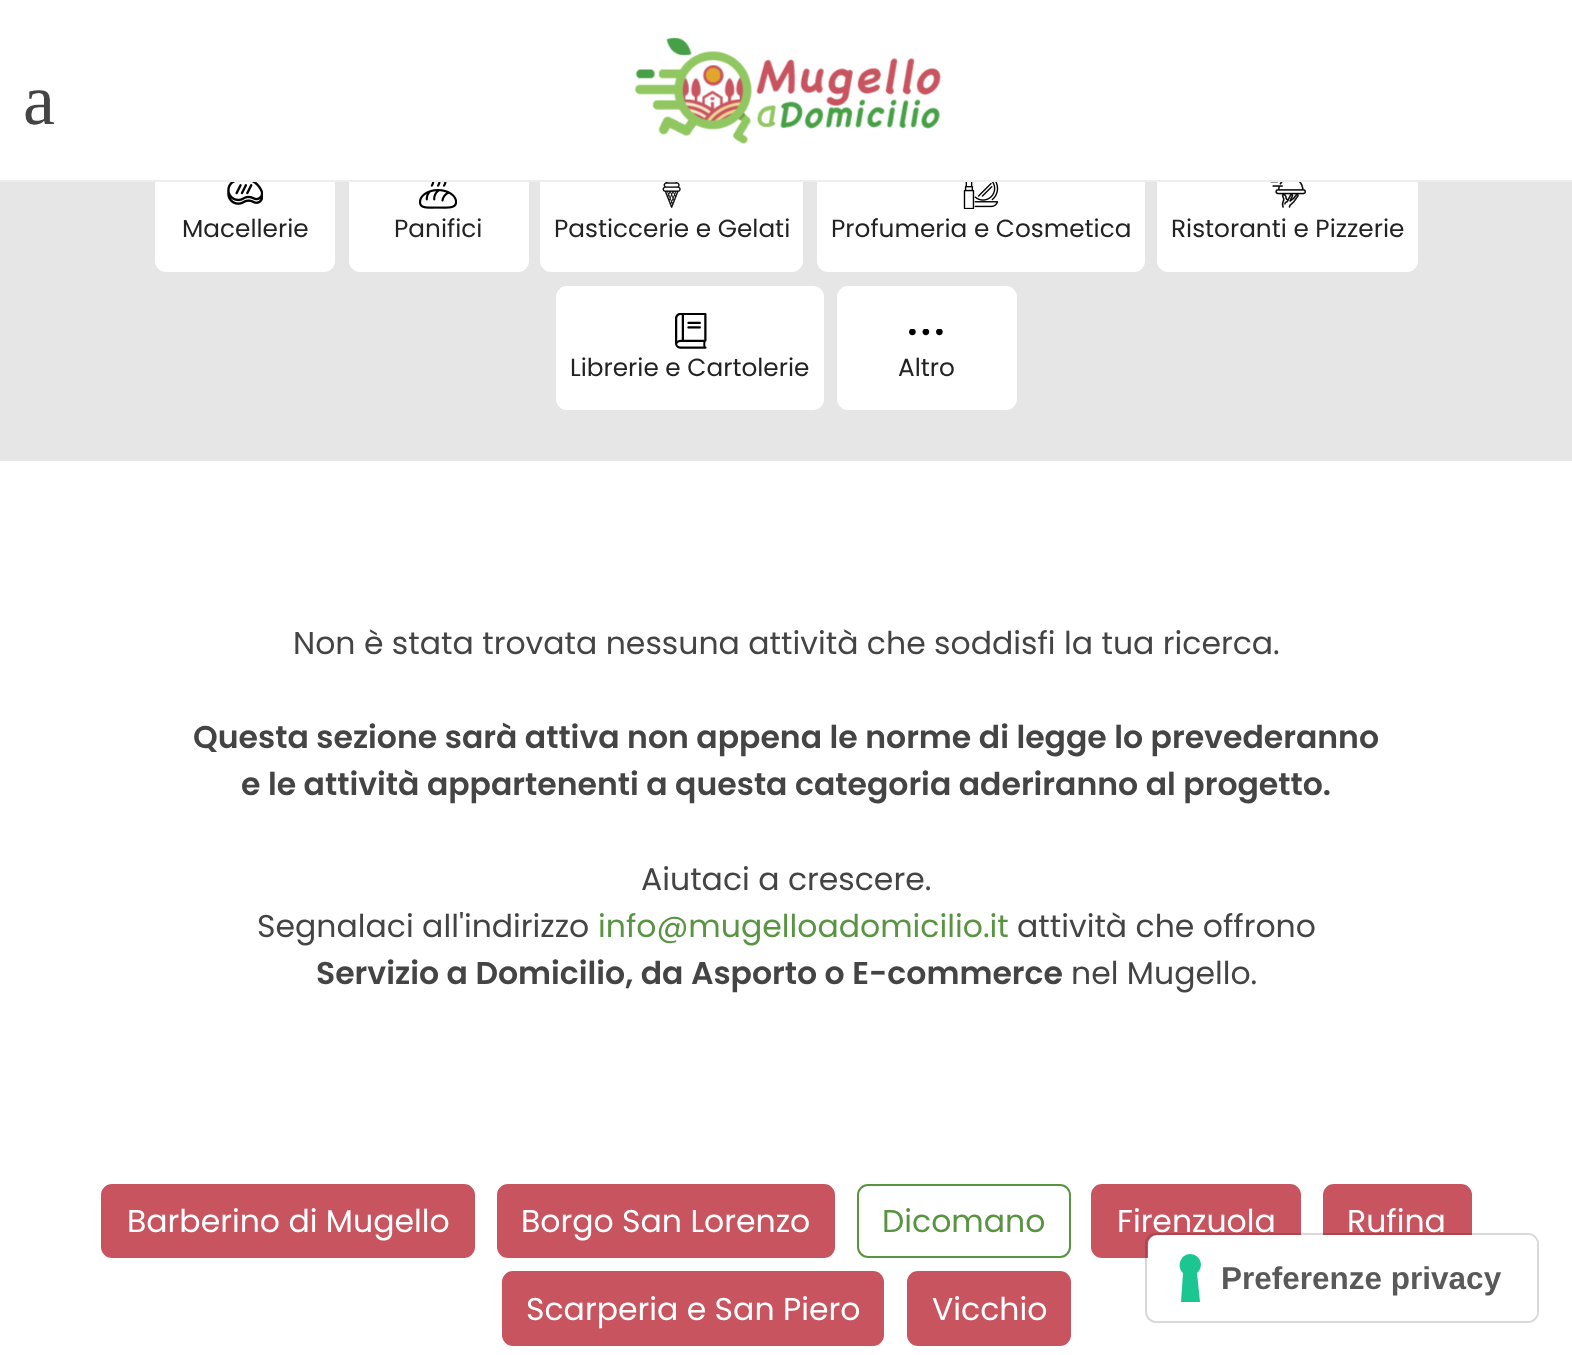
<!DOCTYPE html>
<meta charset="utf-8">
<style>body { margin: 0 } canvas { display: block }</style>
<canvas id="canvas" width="1572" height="1355"></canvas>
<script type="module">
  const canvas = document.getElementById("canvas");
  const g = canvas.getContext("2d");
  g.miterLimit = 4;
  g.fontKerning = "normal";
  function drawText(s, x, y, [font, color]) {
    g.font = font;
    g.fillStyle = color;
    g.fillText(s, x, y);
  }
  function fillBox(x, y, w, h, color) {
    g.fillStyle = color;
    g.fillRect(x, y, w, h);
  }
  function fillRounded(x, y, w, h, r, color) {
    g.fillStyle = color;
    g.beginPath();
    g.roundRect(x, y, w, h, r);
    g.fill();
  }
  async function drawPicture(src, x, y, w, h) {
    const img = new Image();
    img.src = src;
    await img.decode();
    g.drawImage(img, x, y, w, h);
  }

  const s1 = ["72px Liberation Serif", "#444444"];
  const s2 = ["24.75px Poppins", "#222222"];
  const s3 = ["31.5px Poppins", "#444444"];
  const s4 = ["600 31.5px Poppins", "#444444"];
  const s5 = ["31.5px Poppins", "#589442"];
  const s6 = ["31.5px Poppins", "#FFFFFF"];
  const s7 = ["bold 31.5px Liberation Sans", "#595959"];

  fillBox(0, 0, 1572, 1355, "#FFFFFF");
  fillBox(0, 182, 1572, 279, "#E6E6E6");
  g.fillStyle = "#FFFFFF";
  g.beginPath();
  g.roundRect(156, 147, 178, 124, 10);
  g.fill();
  g.strokeStyle = "#FFFFFF";
  g.lineWidth = 2;
  g.stroke();
  g.beginPath();
  g.roundRect(350, 147, 178, 124, 10);
  g.fill();
  g.stroke();
  g.beginPath();
  g.roundRect(541, 147, 261, 124, 10);
  g.fill();
  g.stroke();
  g.beginPath();
  g.roundRect(818, 147, 326, 124, 10);
  g.fill();
  g.stroke();
  g.beginPath();
  g.roundRect(1158, 147, 259, 124, 10);
  g.fill();
  g.stroke();
  fillBox(0, 180, 1572, 2, "#EDEDED");
  drawText("a", 23, 124, s1);
  await drawPicture("pic1.png", 634, 37, 307, 107);
  await drawPicture("pic2.png", 227, 182, 36, 23);
  drawText("Macellerie", 182, 237, s2);
  await drawPicture("pic3.png", 419, 182, 38, 27);
  drawText("Panifici", 394, 237, s2);
  await drawPicture("pic4.png", 662, 182, 19, 26);
  drawText("Pasticcerie e Gelati", 554, 237, s2);
  await drawPicture("pic5.png", 963, 182, 36, 27);
  drawText("Profumeria e Cosmetica", 831, 237, s2);
  await drawPicture("pic6.png", 1270, 182, 36, 26);
  drawText("Ristoranti e Pizzerie", 1171, 237, s2);
  g.fillStyle = "#FFFFFF";
  g.beginPath();
  g.roundRect(557, 287, 266, 122, 10);
  g.fill();
  g.stroke();
  await drawPicture("pic7.png", 675, 313, 32, 36);
  drawText("Librerie e Cartolerie", 570, 376, s2);
  g.fillStyle = "#FFFFFF";
  g.beginPath();
  g.roundRect(838, 287, 178, 122, 10);
  g.fill();
  g.stroke();
  await drawPicture("pic8.png", 909, 329, 34, 7);
  drawText("Altro", 898, 376, s2);
  drawText("Non è stata trovata nessuna attività che soddisfi la tua ricerca.", 293, 654, s3);
  drawText("Questa sezione sarà attiva non appena le norme di legge lo prevederanno", 193, 748, s4);
  drawText("e le attività appartenenti a questa categoria aderiranno al progetto.", 241, 795, s4);
  drawText("Aiutaci a crescere.", 641, 890, s3);
  drawText("Segnalaci all'indirizzo", 257, 937, s3);
  drawText("info@mugelloadomicilio.it", 598, 937, s5);
  drawText("attività che offrono", 1017, 937, s3);
  drawText("Servizio a Domicilio, da Asporto o E-commerce", 316, 984, s4);
  drawText("nel Mugello.", 1071, 984, s3);
  g.fillStyle = "#C7545E";
  g.beginPath();
  g.roundRect(102, 1185, 372, 72, 10);
  g.fill();
  g.strokeStyle = "#C7545E";
  g.stroke();
  drawText("Barberino di Mugello", 127, 1232, s6);
  g.fillStyle = "#C7545E";
  g.beginPath();
  g.roundRect(498, 1185, 336, 72, 10);
  g.fill();
  g.stroke();
  drawText("Borgo San Lorenzo", 521, 1232, s6);
  g.beginPath();
  g.roundRect(858, 1185, 212, 72, 10);
  g.strokeStyle = "#589442";
  g.stroke();
  drawText("Dicomano", 882, 1232, s5);
  g.fillStyle = "#C7545E";
  g.beginPath();
  g.roundRect(1092, 1185, 208, 72, 10);
  g.fill();
  g.strokeStyle = "#C7545E";
  g.stroke();
  drawText("Firenzuola", 1117, 1232, s6);
  g.fillStyle = "#C7545E";
  g.beginPath();
  g.roundRect(1324, 1185, 147, 72, 10);
  g.fill();
  g.stroke();
  drawText("Rufina", 1347, 1232, s6);
  g.fillStyle = "#C7545E";
  g.beginPath();
  g.roundRect(503, 1272, 380, 73, 10);
  g.fill();
  g.stroke();
  drawText("Scarperia e San Piero", 526, 1320, s6);
  g.fillStyle = "#C7545E";
  g.beginPath();
  g.roundRect(908, 1272, 162, 73, 10);
  g.fill();
  g.stroke();
  drawText("Vicchio", 932, 1320, s6);
  g.beginPath();
  g.roundRect(1146, 1234, 392, 88, 10);
  g.strokeStyle = "rgba(0, 0, 0, 0.15)";
  g.stroke();
  fillRounded(1148, 1235, 389, 86, 9, "#FFFFFF");
  g.fillStyle = "#1CC691";
  g.beginPath();
  g.moveTo(1190, 1254);
  g.bezierCurveTo(1200, 1254, 1205, 1266, 1197, 1273);
  g.lineTo(1200, 1302);
  g.lineTo(1181, 1302);
  g.lineTo(1183, 1273);
  g.bezierCurveTo(1176, 1266, 1181, 1254, 1190, 1254);
  g.closePath();
  g.fill("evenodd");
  drawText("Preferenze privacy", 1221, 1289, s7);
</script>
